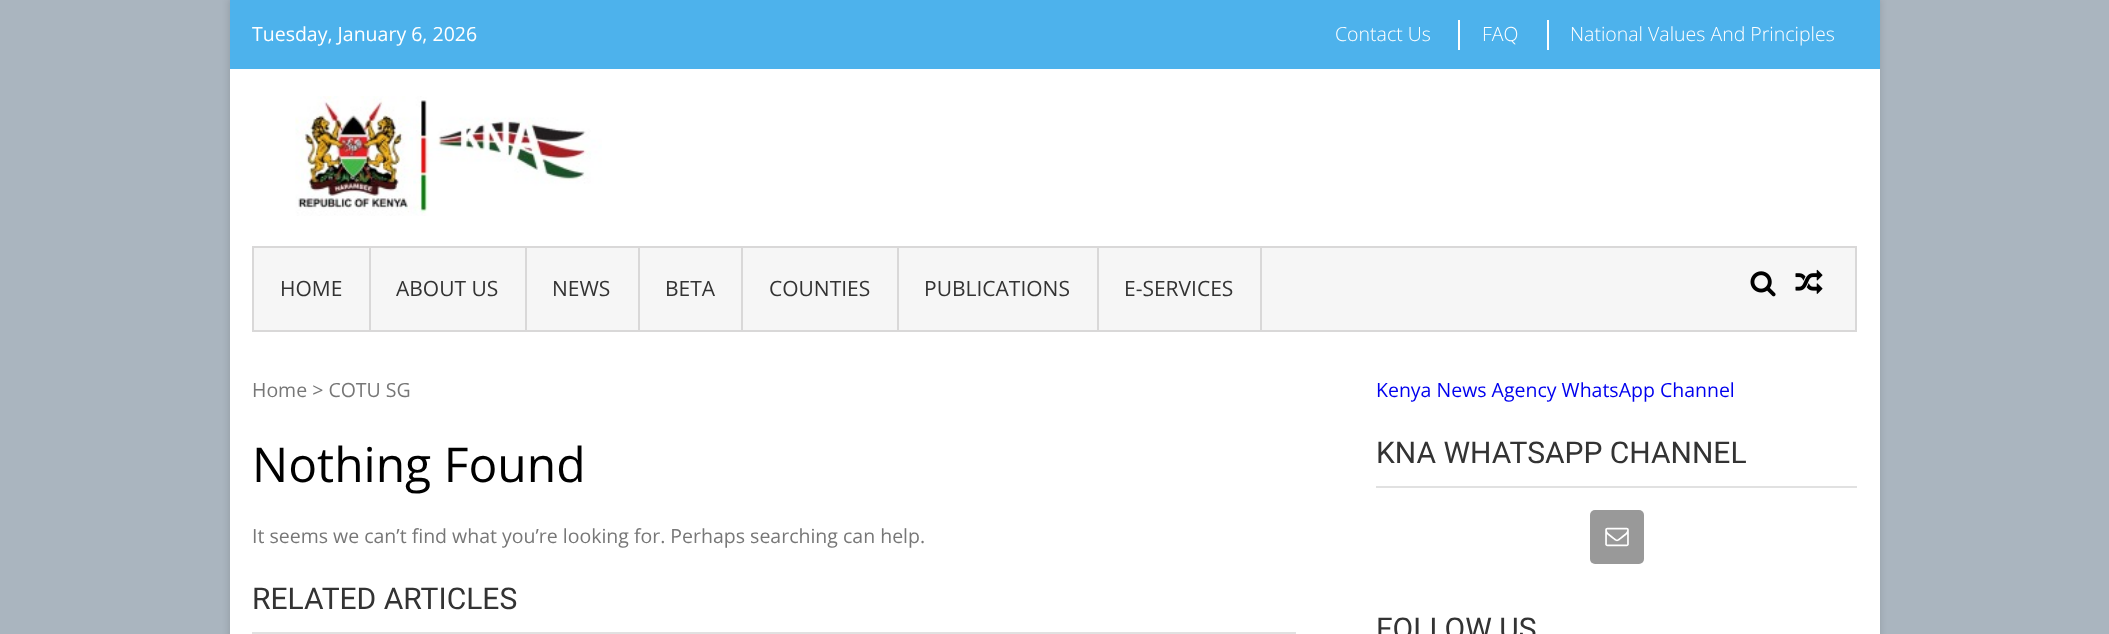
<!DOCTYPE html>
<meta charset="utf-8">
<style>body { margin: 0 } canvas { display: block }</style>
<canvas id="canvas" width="2109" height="634"></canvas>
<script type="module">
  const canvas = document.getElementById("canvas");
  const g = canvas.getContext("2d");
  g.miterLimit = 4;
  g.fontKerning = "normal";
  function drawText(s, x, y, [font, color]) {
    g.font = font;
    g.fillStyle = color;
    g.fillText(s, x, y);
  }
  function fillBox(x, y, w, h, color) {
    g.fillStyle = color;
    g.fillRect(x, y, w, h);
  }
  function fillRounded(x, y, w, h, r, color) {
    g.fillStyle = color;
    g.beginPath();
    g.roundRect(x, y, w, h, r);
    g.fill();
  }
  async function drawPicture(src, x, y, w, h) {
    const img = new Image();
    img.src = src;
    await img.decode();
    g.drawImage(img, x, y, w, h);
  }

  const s1 = ["19.5px Open Sans", "#FFFFFF"];
  const s2 = ["300 19.5px Open Sans", "#FFFFFF"];
  const s3 = ["21px Open Sans", "#333333"];
  const s4 = ["19.5px Open Sans", "#777777"];
  const s5 = ["48px Open Sans", "#000000"];
  const s6 = ["30px Roboto", "#333333"];
  const s7 = ["19.5px Open Sans", "#0000EE"];

  fillBox(0, 0, 2109, 634, "#AAB5BF");
  g.fillStyle = "rgba(0, 0, 0, 0.1)";
  g.filter = "blur(3px)";
  g.beginPath();
  g.rect(228, -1, 1653, 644);
  g.fill();
  g.filter = "none";
  fillBox(230, 69, 1650, 565, "#FFFFFF");
  fillBox(230, 0, 1650, 69, "#4DB2EC");
  drawText("Tuesday, January 6, 2026", 252, 41, s1);
  drawText("Contact Us", 1335, 41, s2);
  fillBox(1458, 20, 2, 30, "#FFFFFF");
  drawText("FAQ", 1482, 41, s2);
  fillBox(1547, 20, 2, 30, "#FFFFFF");
  drawText("National Values And Principles", 1570, 41, s2);
  await drawPicture("pic1.png", 295, 96, 307, 120);
  g.fillStyle = "#F6F6F6";
  g.beginPath();
  g.rect(253, 247, 1603, 84);
  g.fill();
  g.strokeStyle = "#D9D8D8";
  g.lineWidth = 2;
  g.stroke();
  fillBox(369, 248, 2, 82, "#D9D8D8");
  drawText("HOME", 280, 296, s3);
  fillBox(525, 248, 2, 82, "#D9D8D8");
  drawText("ABOUT US", 396, 296, s3);
  fillBox(638, 248, 2, 82, "#D9D8D8");
  drawText("NEWS", 552, 296, s3);
  fillBox(741, 248, 2, 82, "#D9D8D8");
  drawText("BETA", 665, 296, s3);
  fillBox(897, 248, 2, 82, "#D9D8D8");
  drawText("COUNTIES", 769, 296, s3);
  fillBox(1097, 248, 2, 82, "#D9D8D8");
  drawText("PUBLICATIONS", 924, 296, s3);
  fillBox(1260, 248, 2, 82, "#D9D8D8");
  drawText("E-SERVICES", 1124, 296, s3);
  await drawPicture("pic2.png", 1750, 271, 26, 26);
  await drawPicture("pic3.png", 1795, 269, 28, 25);
  drawText("Home > COTU SG", 252, 397, s4);
  drawText("Nothing Found", 252, 482, s5);
  drawText("It seems we can’t find what you’re looking for. Perhaps searching can help.", 252, 543, s4);
  fillBox(252, 632, 1044, 2, "#E1E1E1");
  drawText("RELATED ARTICLES", 252, 609, s6);
  drawText("Kenya News Agency WhatsApp Channel", 1376, 397, s7);
  fillBox(1376, 486, 481, 2, "#E1E1E1");
  drawText("KNA WHATSAPP CHANNEL", 1376, 463, s6);
  fillRounded(1590, 510, 54, 54, 5, "#999999");
  await drawPicture("pic4.png", 1605, 527, 24, 20);
  drawText("FOLLOW US", 1376, 639, s6);
</script>
